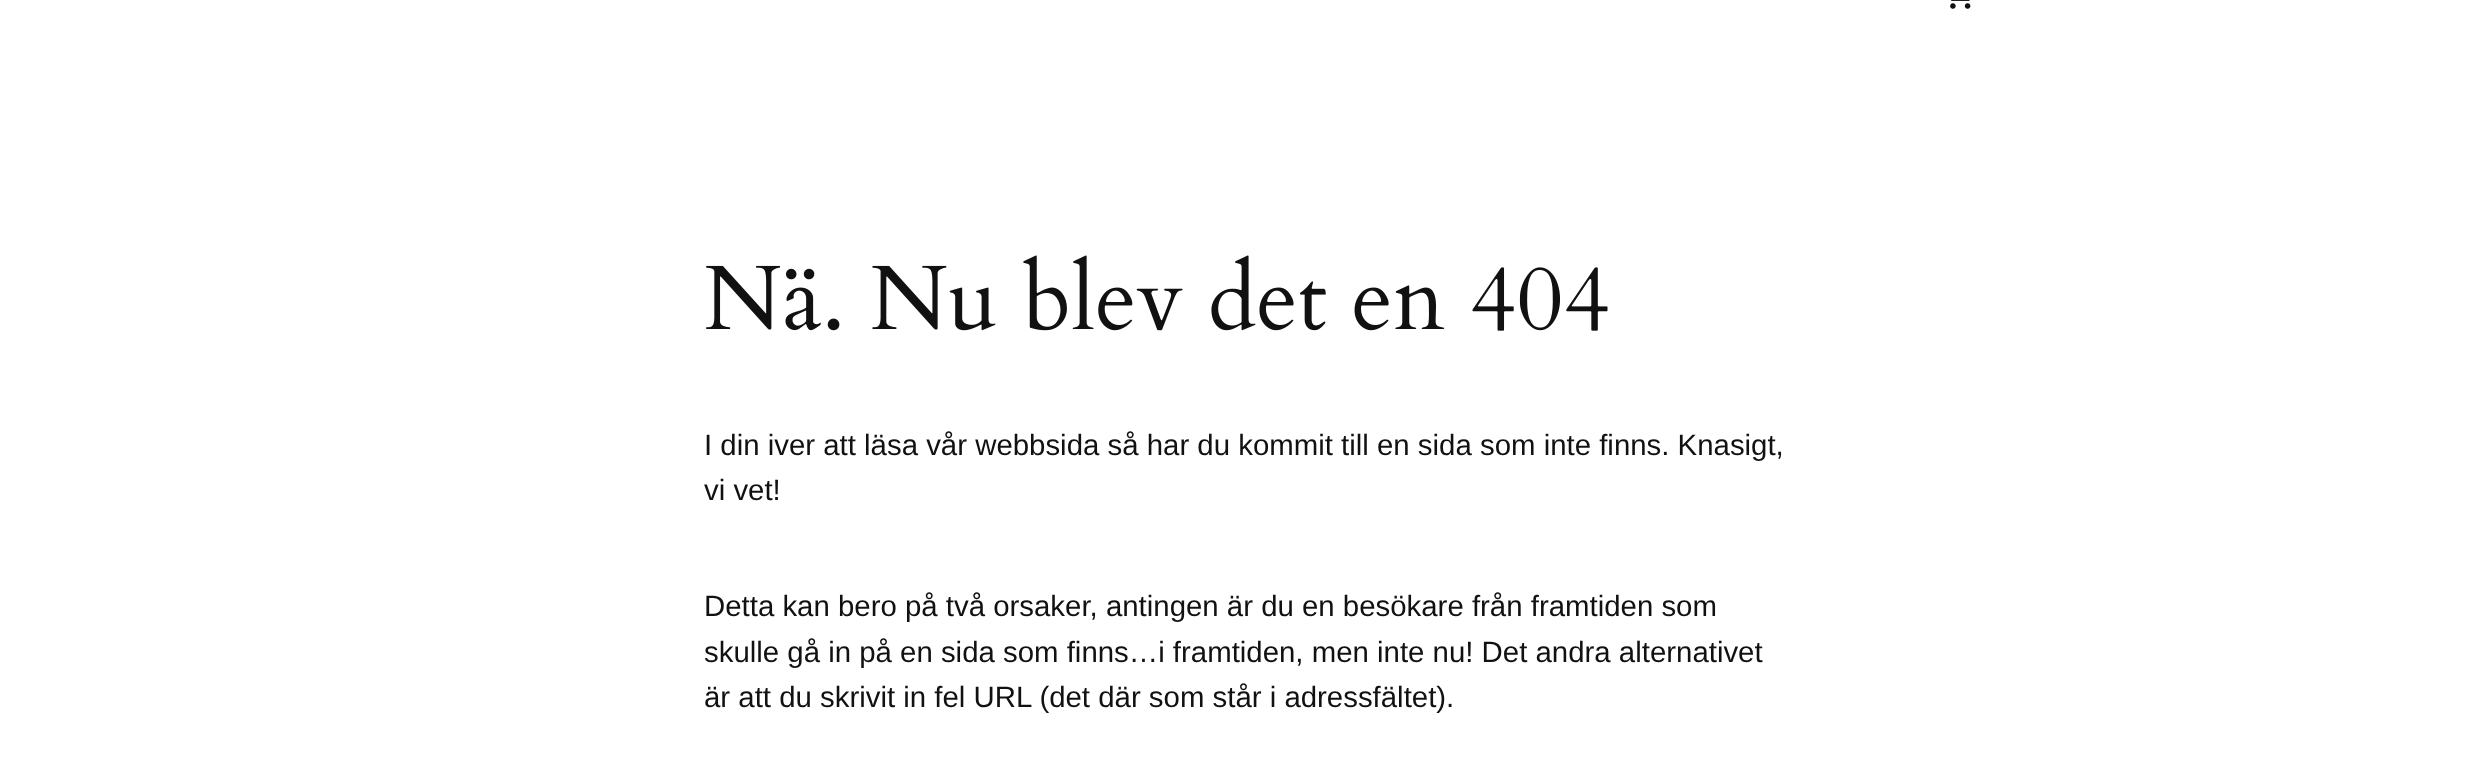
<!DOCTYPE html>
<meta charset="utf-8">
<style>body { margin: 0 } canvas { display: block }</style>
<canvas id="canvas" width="2492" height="757"></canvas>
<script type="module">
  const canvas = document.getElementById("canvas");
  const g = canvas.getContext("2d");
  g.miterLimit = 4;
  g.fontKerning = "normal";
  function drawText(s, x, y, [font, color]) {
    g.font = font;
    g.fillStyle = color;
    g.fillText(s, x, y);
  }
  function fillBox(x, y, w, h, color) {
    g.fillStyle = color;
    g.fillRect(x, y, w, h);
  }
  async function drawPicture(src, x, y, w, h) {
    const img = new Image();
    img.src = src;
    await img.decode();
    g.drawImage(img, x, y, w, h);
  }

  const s1 = ["29.4px Liberation Sans", "#111111"];

  fillBox(0, 0, 2492, 757, "#FFFFFF");
  await drawPicture("pic1.png", 1950, 0, 21, 9);
  await drawPicture("pic2.png", 706, 255, 902, 76);
  drawText("I din iver att läsa vår webbsida så har du kommit till en sida som inte finns. Knasigt,", 704, 455, s1);
  drawText("vi vet!", 704, 500, s1);
  drawText("Detta kan bero på två orsaker, antingen är du en besökare från framtiden som", 704, 616, s1);
  drawText("skulle gå in på en sida som finns…i framtiden, men inte nu! Det andra alternativet", 704, 662, s1);
  drawText("är att du skrivit in fel URL (det där som står i adressfältet).", 704, 707, s1);
</script>
